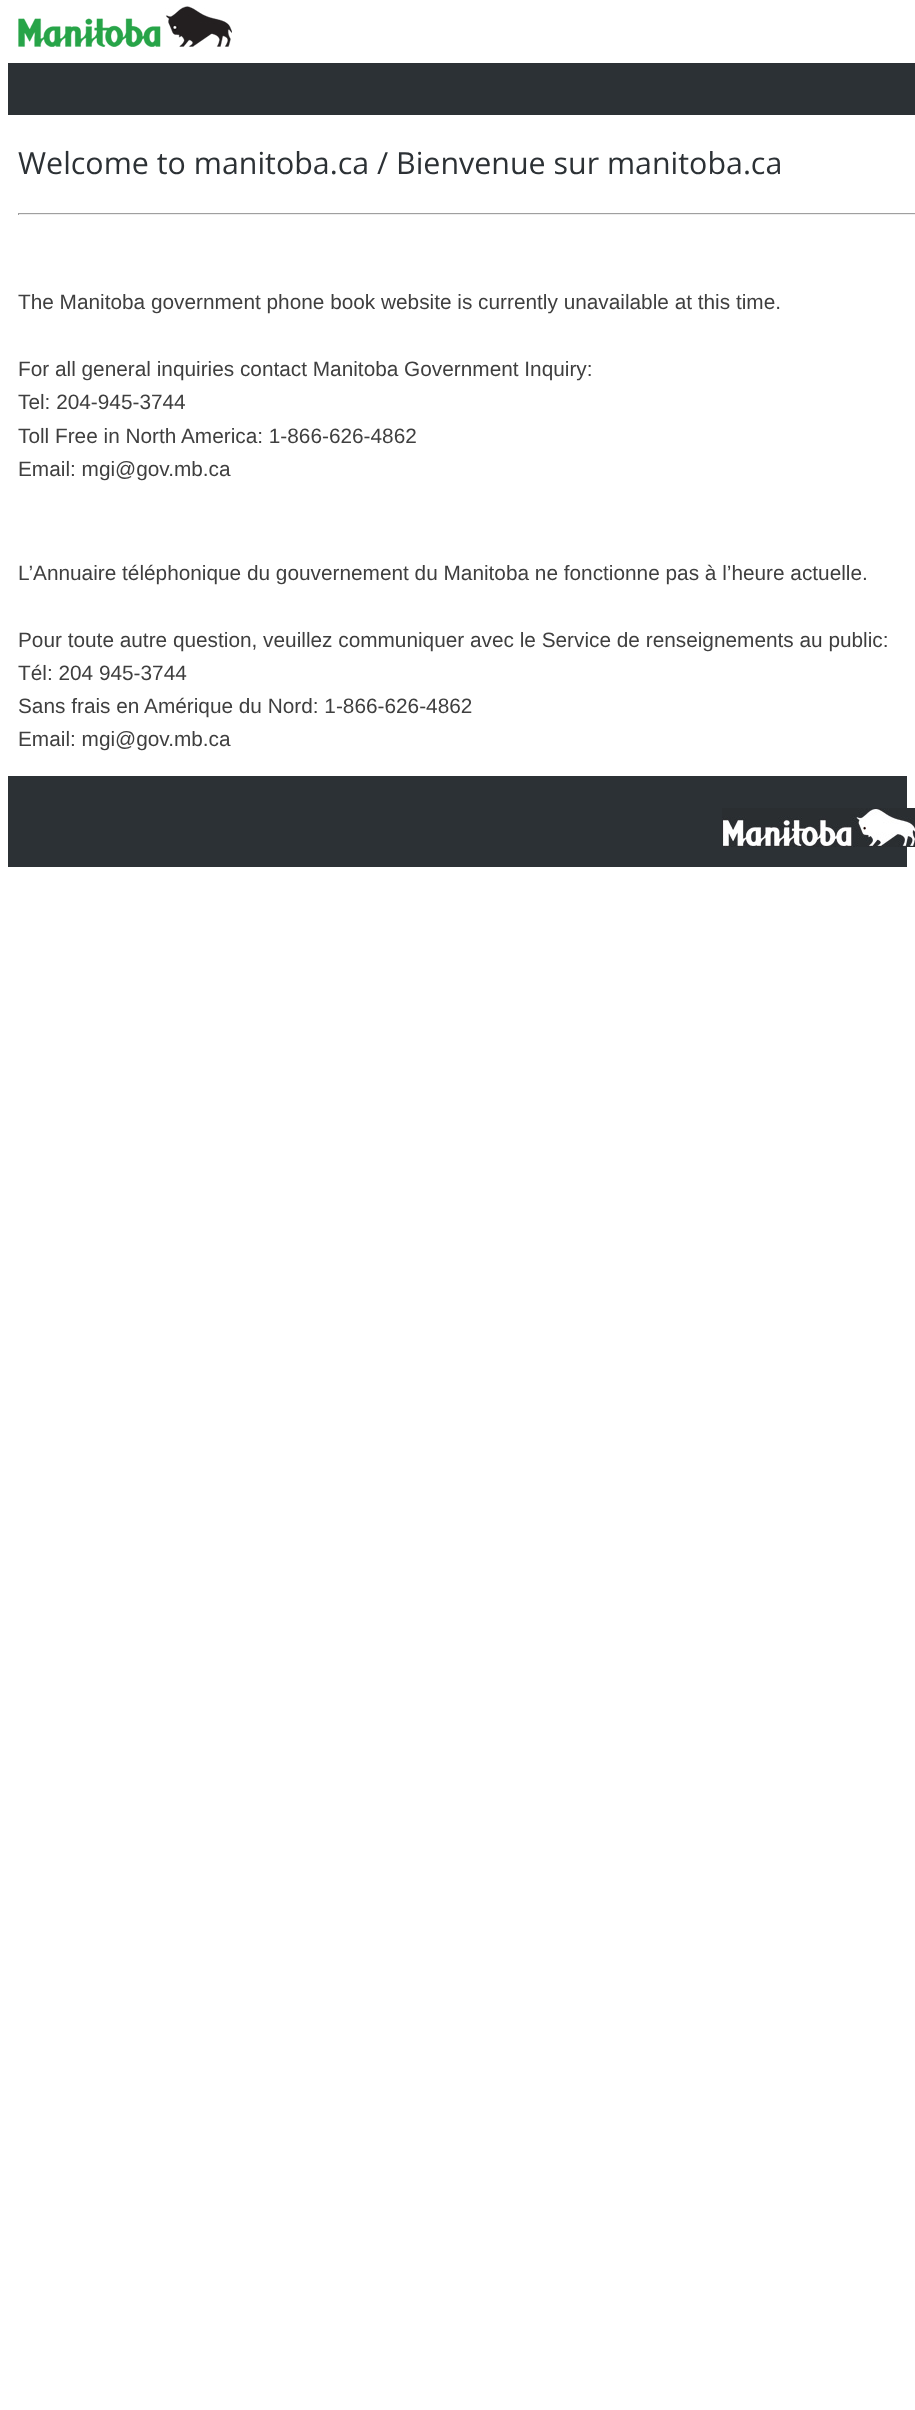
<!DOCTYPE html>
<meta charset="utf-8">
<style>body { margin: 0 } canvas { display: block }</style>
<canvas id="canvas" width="915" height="2410"></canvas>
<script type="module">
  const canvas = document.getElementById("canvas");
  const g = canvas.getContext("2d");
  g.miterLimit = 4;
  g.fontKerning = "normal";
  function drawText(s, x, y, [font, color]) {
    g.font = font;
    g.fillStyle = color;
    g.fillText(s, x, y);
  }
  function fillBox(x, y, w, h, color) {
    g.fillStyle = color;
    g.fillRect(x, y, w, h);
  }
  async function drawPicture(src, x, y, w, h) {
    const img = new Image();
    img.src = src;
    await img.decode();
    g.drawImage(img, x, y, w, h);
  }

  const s1 = ["30.4px Open Sans", "#2C3135"];
  const s2 = ["20.8px Liberation Sans", "#3F3F3F"];

  fillBox(0, 0, 915, 2410, "#FFFFFF");
  await drawPicture("pic1.png", 18, 6, 214, 41);
  fillBox(8, 63, 907, 52, "#2C3135");
  drawText("Welcome to manitoba.ca / Bienvenue sur manitoba.ca", 18, 174, s1);
  fillBox(18, 213, 897, 1, "#9F9F9F");
  fillBox(18, 214, 897, 1, "#EEEEEE");
  fillBox(18, 213, 1, 2, "#9F9F9F");
  drawText("The Manitoba government phone book website is currently unavailable at this time.", 18, 309, s2);
  drawText("For all general inquiries contact Manitoba Government Inquiry:", 18, 376, s2);
  drawText("Tel: 204-945-3744", 18, 409, s2);
  drawText("Toll Free in North America: 1-866-626-4862", 18, 443, s2);
  drawText("Email: mgi@gov.mb.ca", 18, 476, s2);
  drawText("L’Annuaire téléphonique du gouvernement du Manitoba ne fonctionne pas à l’heure actuelle.", 18, 580, s2);
  drawText("Pour toute autre question, veuillez communiquer avec le Service de renseignements au public:", 18, 647, s2);
  drawText("Tél: 204 945-3744", 18, 680, s2);
  drawText("Sans frais en Amérique du Nord: 1-866-626-4862", 18, 713, s2);
  drawText("Email: mgi@gov.mb.ca", 18, 746, s2);
  fillBox(8, 776, 899, 91, "#2C3135");
  await drawPicture("pic2.png", 722, 808, 193, 39);
</script>
